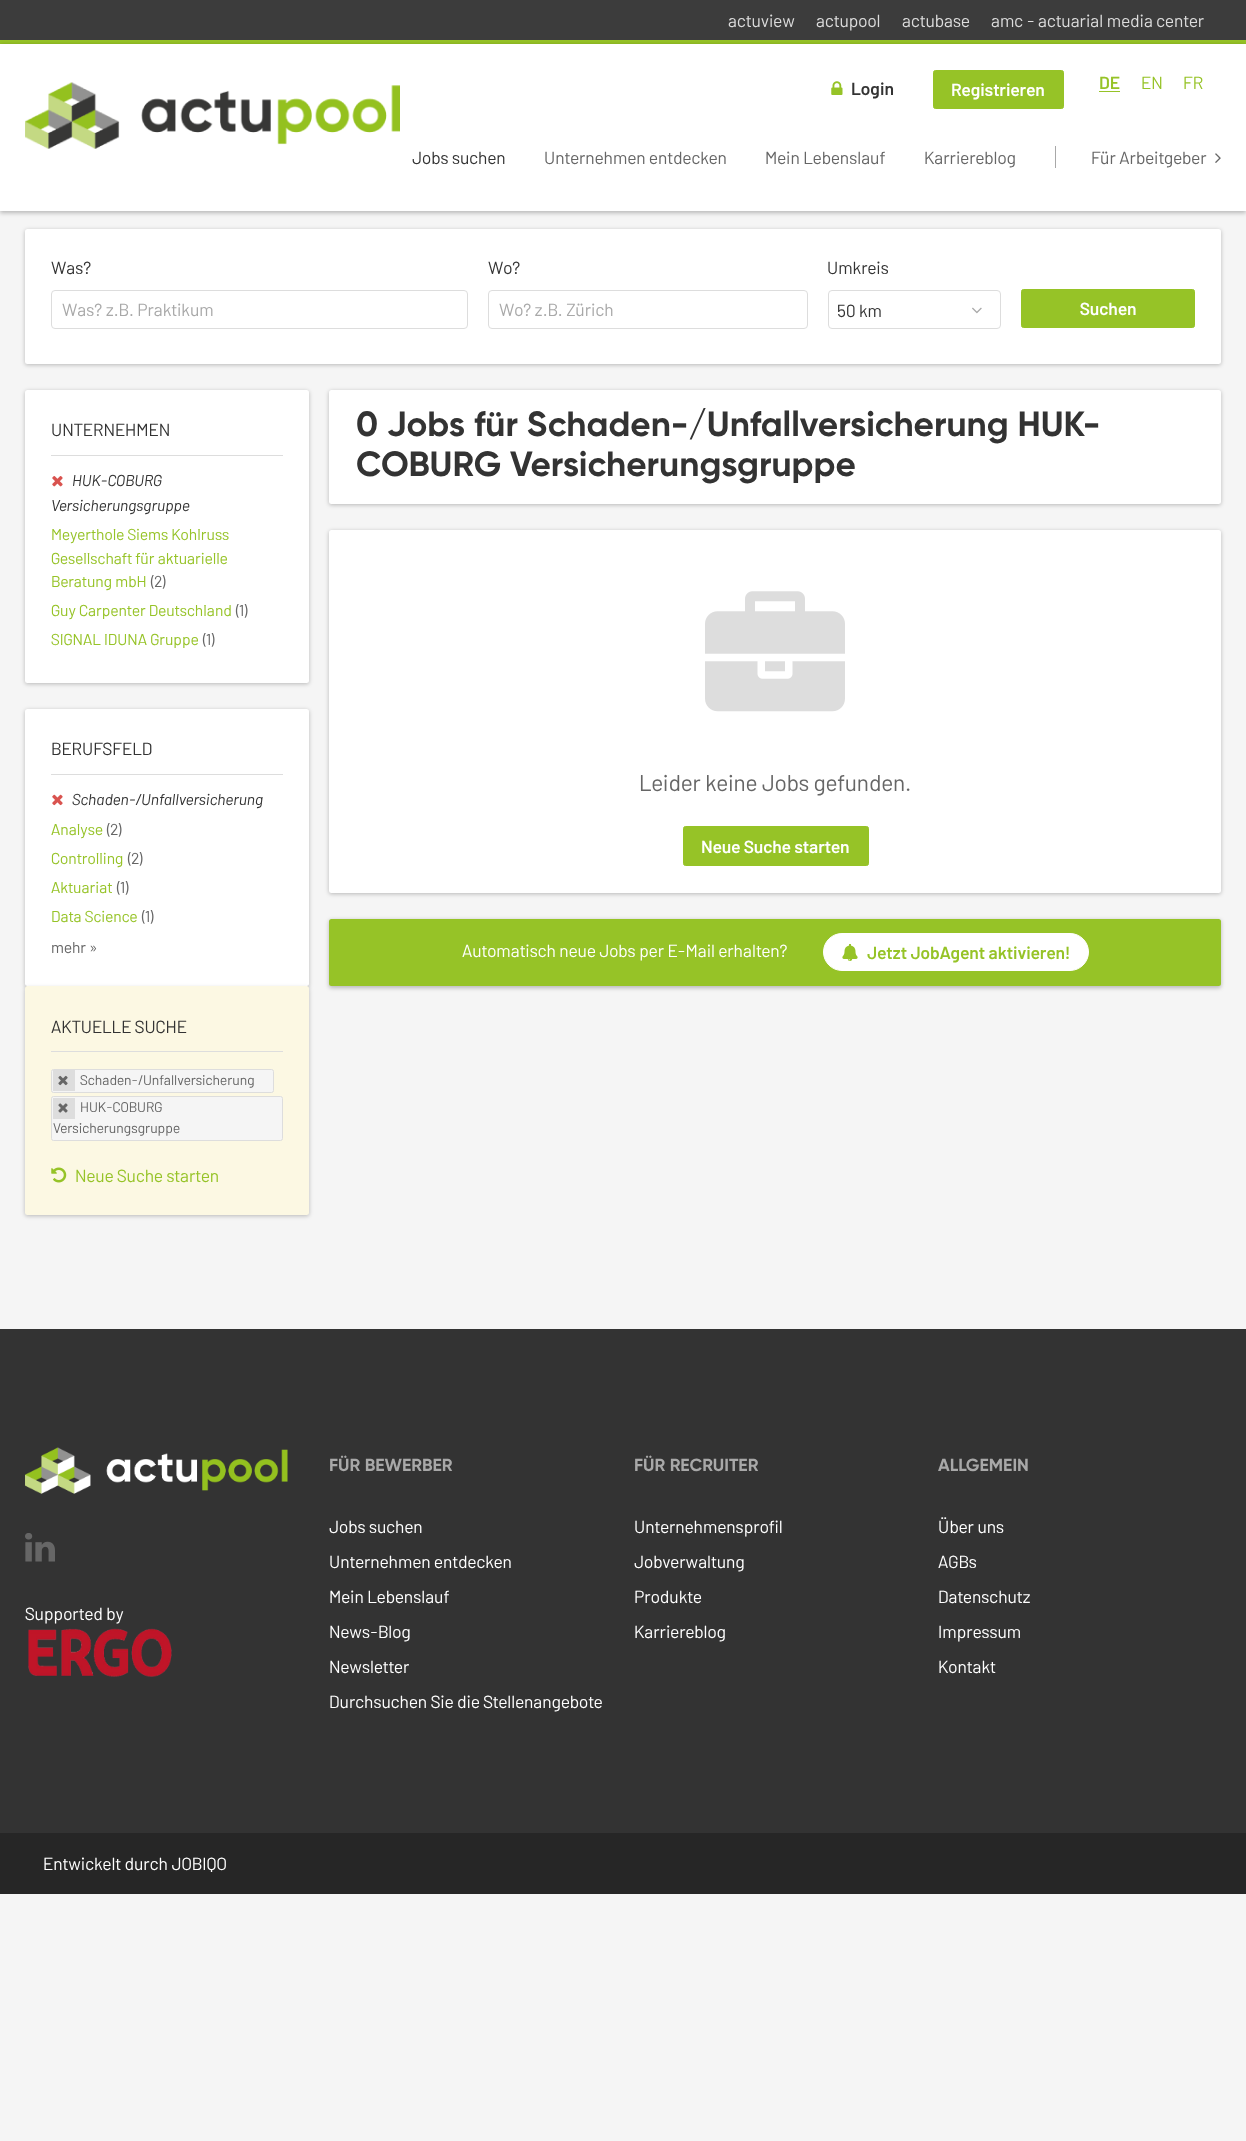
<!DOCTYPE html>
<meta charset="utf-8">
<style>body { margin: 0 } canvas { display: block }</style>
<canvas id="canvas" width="1246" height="2141"></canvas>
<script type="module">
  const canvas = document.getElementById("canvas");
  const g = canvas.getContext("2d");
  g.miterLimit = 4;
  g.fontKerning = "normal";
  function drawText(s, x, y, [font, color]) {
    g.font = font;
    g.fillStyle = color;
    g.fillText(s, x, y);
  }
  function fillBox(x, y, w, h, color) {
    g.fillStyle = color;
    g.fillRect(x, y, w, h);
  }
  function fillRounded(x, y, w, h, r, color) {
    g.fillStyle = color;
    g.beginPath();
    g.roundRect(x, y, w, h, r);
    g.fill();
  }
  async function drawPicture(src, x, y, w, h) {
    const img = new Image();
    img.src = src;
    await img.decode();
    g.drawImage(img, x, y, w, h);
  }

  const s1 = ["17.5px Barlow", "#DDDDDD"];
  const s2 = ["600 17.5px Barlow", "#333333"];
  const s3 = ["600 17.5px Barlow", "#FFFFFF"];
  const s4 = ["600 17.5px Barlow", "#96C327"];
  const s5 = ["17.5px Barlow", "#96C327"];
  const s6 = ["17.5px Barlow", "#333333"];
  const s7 = ["17.5px Barlow", "#666666"];
  const s8 = ["17.5px Barlow", "#A8A8A8"];
  const s9 = ["italic 15.75px Barlow", "#333333"];
  const s10 = ["15.75px Barlow", "#96C327"];
  const s11 = ["15.75px Barlow", "#666666"];
  const s12 = ["14px Barlow", "#666666"];
  const s13 = ["35px Gilroy", "#333333"];
  const s14 = ["22.75px Barlow", "#666666"];
  const s15 = ["17.5px Barlow", "#FFFFFF"];
  const s16 = ["17.5px Gilroy", "#A8A8A8"];

  fillBox(0, 0, 1246, 2141, "#F5F5F5");
  fillBox(0, 0, 1246, 40, "#3C3C3C");
  drawText("actuview", 728, 27, s1);
  drawText("actupool", 816, 27, s1);
  drawText("actubase", 902, 27, s1);
  drawText("amc - actuarial media center", 991, 27, s1);
  fillBox(0, 40, 1246, 4, "#96C327");
  g.fillStyle = "rgba(0, 0, 0, 0.25)";
  g.filter = "blur(2px)";
  g.beginPath();
  g.rect(0, 45, 1246, 168);
  g.fill();
  g.filter = "none";
  fillBox(0, 44, 1246, 167, "#FFFFFF");
  await drawPicture("pic1.png", 25, 82, 375, 67);
  await drawPicture("pic2.png", 831, 81, 12, 14);
  drawText("Login", 851, 95, s2);
  g.fillStyle = "#96C327";
  g.beginPath();
  g.roundRect(933.5, 70.5, 130, 38, 2);
  g.fill();
  g.strokeStyle = "#96C327";
  g.stroke();
  drawText("Registrieren", 951, 96, s3);
  drawText("DE", 1099, 89, s4);
  fillBox(1099, 91, 21, 1, "#96C327");
  drawText("EN", 1141, 89, s5);
  drawText("FR", 1183, 89, s5);
  drawText("Jobs suchen", 412, 164, s6);
  drawText("Unternehmen entdecken", 544, 164, s7);
  drawText("Mein Lebenslauf", 765, 164, s7);
  drawText("Karriereblog", 924, 164, s7);
  fillBox(1055, 146, 1, 22, "#A8A8A8");
  drawText("Für Arbeitgeber", 1091, 164, s7);
  await drawPicture("pic3.png", 1215, 153, 6, 10);
  g.fillStyle = "rgba(0, 0, 0, 0.25)";
  g.filter = "blur(2px)";
  g.beginPath();
  g.roundRect(25, 230, 1196, 135, 2.5);
  g.fill();
  g.filter = "none";
  fillRounded(25, 229, 1196, 135, 2.5, "#FFFFFF");
  drawText("Was?", 51, 274, s6);
  g.beginPath();
  g.roundRect(51.5, 290.5, 416, 38, 3.5);
  g.strokeStyle = "#DDDDDD";
  g.stroke();
  drawText("Was? z.B. Praktikum", 62, 316, s8);
  drawText("Wo?", 488, 274, s6);
  g.beginPath();
  g.roundRect(488.5, 290.5, 319, 38, 3.5);
  g.stroke();
  drawText("Wo? z.B. Zürich", 499, 316, s8);
  drawText("Umkreis", 827, 274, s6);
  g.beginPath();
  g.roundRect(828.5, 290.5, 172, 38, 3.5);
  g.stroke();
  drawText("50 km", 837, 317, s6);
  await drawPicture("pic4.png", 972, 307, 10, 7);
  g.fillStyle = "#96C327";
  g.beginPath();
  g.roundRect(1021.5, 289.5, 173, 38, 2);
  g.fill();
  g.strokeStyle = "#96C327";
  g.stroke();
  drawText("Suchen", 1080, 315, s3);
  g.fillStyle = "rgba(0, 0, 0, 0.25)";
  g.filter = "blur(2px)";
  g.beginPath();
  g.roundRect(25, 391, 284, 293, 2.5);
  g.fill();
  g.filter = "none";
  fillRounded(25, 390, 284, 293, 2.5, "#FFFFFF");
  fillBox(51, 455, 232, 1, "#DDDDDD");
  drawText("UNTERNEHMEN", 51, 436, s6);
  await drawPicture("pic5.png", 52, 476, 11, 11);
  drawText("HUK-COBURG", 72, 486, s9);
  drawText("Versicherungsgruppe", 51, 511, s9);
  drawText("Meyerthole Siems Kohlruss", 51, 540, s10);
  drawText("Gesellschaft für aktuarielle", 51, 564, s10);
  drawText("Beratung mbH", 51, 587, s10);
  drawText("(2)", 150, 587, s11);
  drawText("Guy Carpenter Deutschland", 51, 616, s10);
  drawText("(1)", 235, 616, s11);
  drawText("SIGNAL IDUNA Gruppe", 51, 645, s10);
  drawText("(1)", 202, 645, s11);
  g.fillStyle = "rgba(0, 0, 0, 0.25)";
  g.filter = "blur(2px)";
  g.beginPath();
  g.roundRect(25, 710, 284, 278, 2.5);
  g.fill();
  g.filter = "none";
  fillRounded(25, 709, 284, 277, 2.5, "#FFFFFF");
  fillBox(51, 774, 232, 1, "#DDDDDD");
  drawText("BERUFSFELD", 51, 755, s6);
  await drawPicture("pic6.png", 52, 794, 11, 12);
  drawText("Schaden-/Unfallversicherung", 72, 805, s9);
  drawText("Analyse", 51, 835, s10);
  drawText("(2)", 106, 835, s11);
  drawText("Controlling", 51, 864, s10);
  drawText("(2)", 127, 864, s11);
  drawText("Aktuariat", 51, 893, s10);
  drawText("(1)", 116, 893, s11);
  drawText("Data Science", 51, 922, s10);
  drawText("(1)", 141, 922, s11);
  drawText("mehr »", 51, 953, s11);
  g.fillStyle = "rgba(0, 0, 0, 0.25)";
  g.filter = "blur(2px)";
  g.beginPath();
  g.roundRect(25, 988, 284, 228, 2.5);
  g.fill();
  g.filter = "none";
  fillRounded(25, 986, 284, 229, 2.5, "#FCF8E3");
  fillBox(51, 1051, 232, 1, "#DDDDDD");
  drawText("AKTUELLE SUCHE", 51, 1033, s6);
  g.fillStyle = "#F5F5F5";
  g.beginPath();
  g.roundRect(51.5, 1069.5, 222, 23, 2);
  g.fill();
  g.strokeStyle = "#DDDDDD";
  g.stroke();
  fillBox(53, 1070, 22, 21, "#DDDDDD");
  await drawPicture("pic7.png", 58, 1075, 10, 11);
  drawText("Schaden-/Unfallversicherung", 80, 1085, s12);
  g.fillStyle = "#F5F5F5";
  g.beginPath();
  g.roundRect(51.5, 1096.5, 231, 44, 2);
  g.fill();
  g.stroke();
  fillBox(53, 1098, 22, 21, "#DDDDDD");
  await drawPicture("pic8.png", 58, 1103, 10, 10);
  drawText("HUK-COBURG", 80, 1112, s12);
  drawText("Versicherungsgruppe", 53, 1133, s12);
  await drawPicture("pic9.png", 51, 1167, 16, 16);
  drawText("Neue Suche starten", 75, 1182, s5);
  g.fillStyle = "rgba(0, 0, 0, 0.25)";
  g.filter = "blur(2px)";
  g.beginPath();
  g.roundRect(329, 391, 892, 114, 2.5);
  g.fill();
  g.filter = "none";
  fillRounded(329, 390, 892, 114, 2.5, "#FFFFFF");
  drawText("0 Jobs für Schaden-/Unfallversicherung HUK-", 356, 436, s13);
  drawText("COBURG Versicherungsgruppe", 356, 476, s13);
  g.fillStyle = "rgba(0, 0, 0, 0.25)";
  g.filter = "blur(2px)";
  g.beginPath();
  g.roundRect(329, 531, 892, 363, 2.5);
  g.fill();
  g.filter = "none";
  fillRounded(329, 530, 892, 363, 2.5, "#FFFFFF");
  await drawPicture("pic10.png", 705, 591, 140, 121);
  drawText("Leider keine Jobs gefunden.", 639, 791, s14);
  g.fillStyle = "#96C327";
  g.beginPath();
  g.roundRect(683.5, 826.5, 185, 39, 2);
  g.fill();
  g.strokeStyle = "#96C327";
  g.stroke();
  drawText("Neue Suche starten", 701, 853, s3);
  g.fillStyle = "rgba(0, 0, 0, 0.25)";
  g.filter = "blur(2px)";
  g.beginPath();
  g.roundRect(329, 920, 892, 68, 2.5);
  g.fill();
  g.filter = "none";
  fillRounded(329, 919, 892, 67, 2.5, "#96C327");
  drawText("Automatisch neue Jobs per E-Mail erhalten?", 462, 957, s15);
  g.beginPath();
  g.roundRect(823.5, 933.5, 265, 37, 18.5);
  g.fill();
  g.strokeStyle = "#FFFFFF";
  g.stroke();
  await drawPicture("pic11.png", 842, 944, 16, 17);
  drawText("Jetzt JobAgent aktivieren!", 867, 959, s4);
  fillBox(0, 1329, 1246, 504, "#333333");
  await drawPicture("pic12.png", 25, 1447, 263, 47);
  await drawPicture("pic13.png", 25, 1533, 30, 29);
  drawText("Supported by", 25, 1620, s15);
  await drawPicture("pic14.png", 28, 1628, 144, 49);
  drawText("FÜR BEWERBER", 329, 1471, s16);
  drawText("Jobs suchen", 329, 1533, s15);
  drawText("Unternehmen entdecken", 329, 1568, s15);
  drawText("Mein Lebenslauf", 329, 1603, s15);
  drawText("News-Blog", 329, 1638, s15);
  drawText("Newsletter", 329, 1673, s15);
  drawText("Durchsuchen Sie die Stellenangebote", 329, 1708, s15);
  drawText("FÜR RECRUITER", 634, 1471, s16);
  drawText("Unternehmensprofil", 634, 1533, s15);
  drawText("Jobverwaltung", 634, 1568, s15);
  drawText("Produkte", 634, 1603, s15);
  drawText("Karriereblog", 634, 1638, s15);
  drawText("ALLGEMEIN", 938, 1471, s16);
  drawText("Über uns", 938, 1533, s15);
  drawText("AGBs", 938, 1568, s15);
  drawText("Datenschutz", 938, 1603, s15);
  drawText("Impressum", 938, 1638, s15);
  drawText("Kontakt", 938, 1673, s15);
  fillBox(0, 1833, 1246, 61, "#262626");
  drawText("Entwickelt durch JOBIQO", 43, 1870, s15);
</script>
